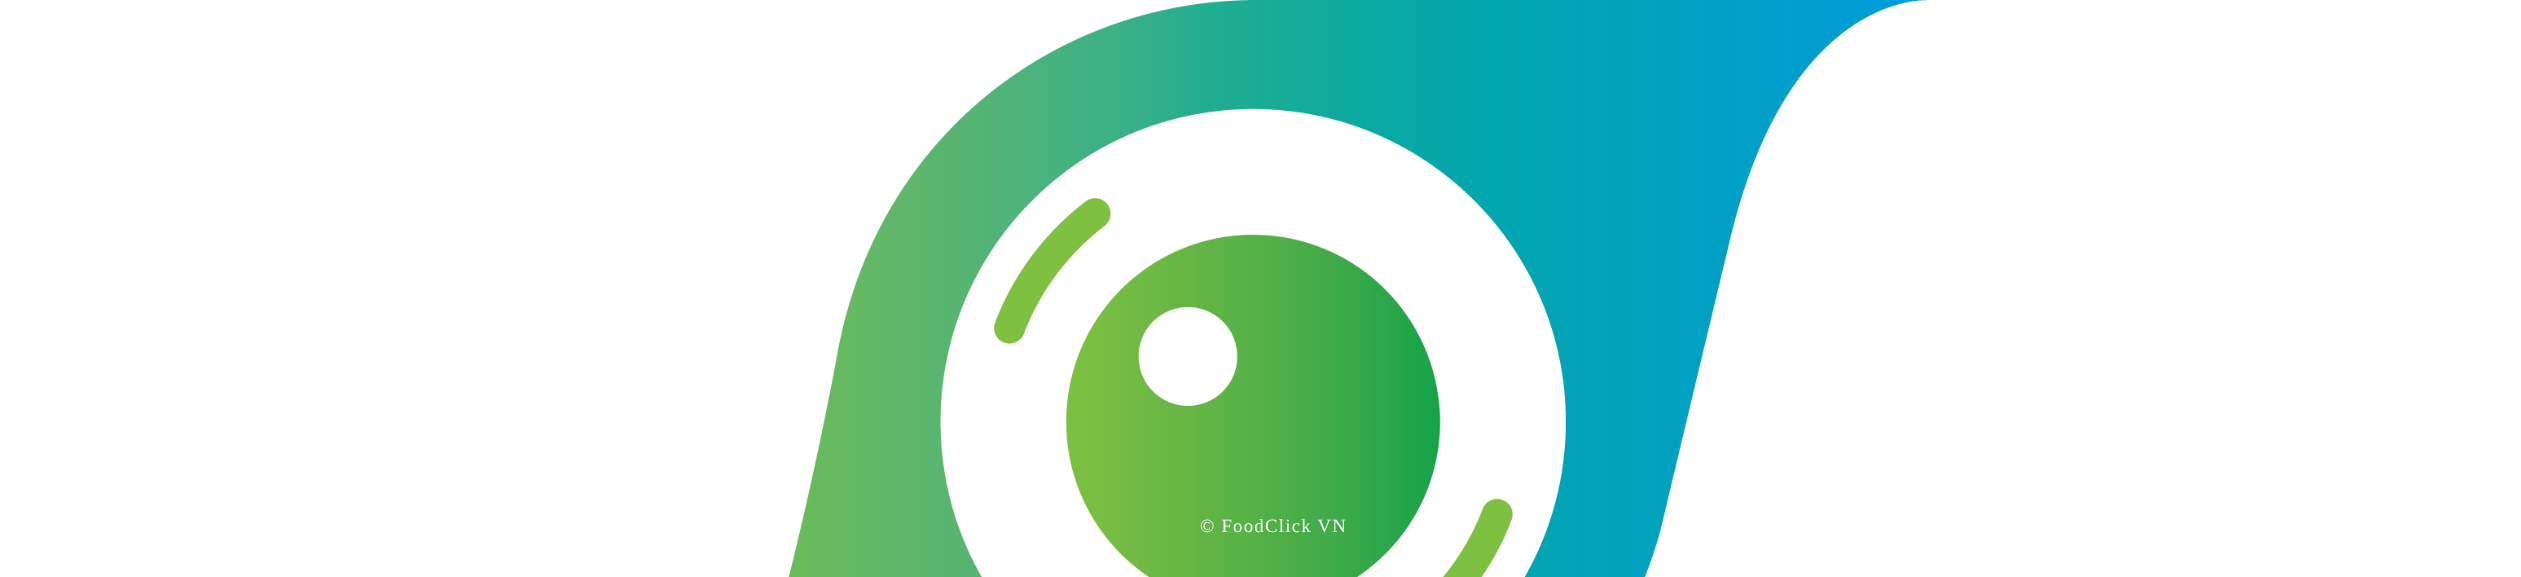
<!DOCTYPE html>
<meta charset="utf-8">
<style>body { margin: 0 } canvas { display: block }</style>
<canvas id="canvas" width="2521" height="577"></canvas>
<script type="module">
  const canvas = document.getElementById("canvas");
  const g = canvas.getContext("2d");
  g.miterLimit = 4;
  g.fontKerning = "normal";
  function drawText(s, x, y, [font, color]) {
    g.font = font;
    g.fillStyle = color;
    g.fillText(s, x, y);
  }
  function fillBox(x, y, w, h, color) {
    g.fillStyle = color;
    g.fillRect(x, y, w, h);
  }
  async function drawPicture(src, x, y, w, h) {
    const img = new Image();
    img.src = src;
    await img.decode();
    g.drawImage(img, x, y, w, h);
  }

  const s1 = ["18.75px Liberation Serif", "#FFFFFF"];

  fillBox(0, 0, 2521, 577, "#FFFFFF");
  await drawPicture("pic1.png", 788, 0, 1139, 577);
  g.letterSpacing = "1.25px";
  drawText("© FoodClick VN", 1200, 532, s1);
</script>
